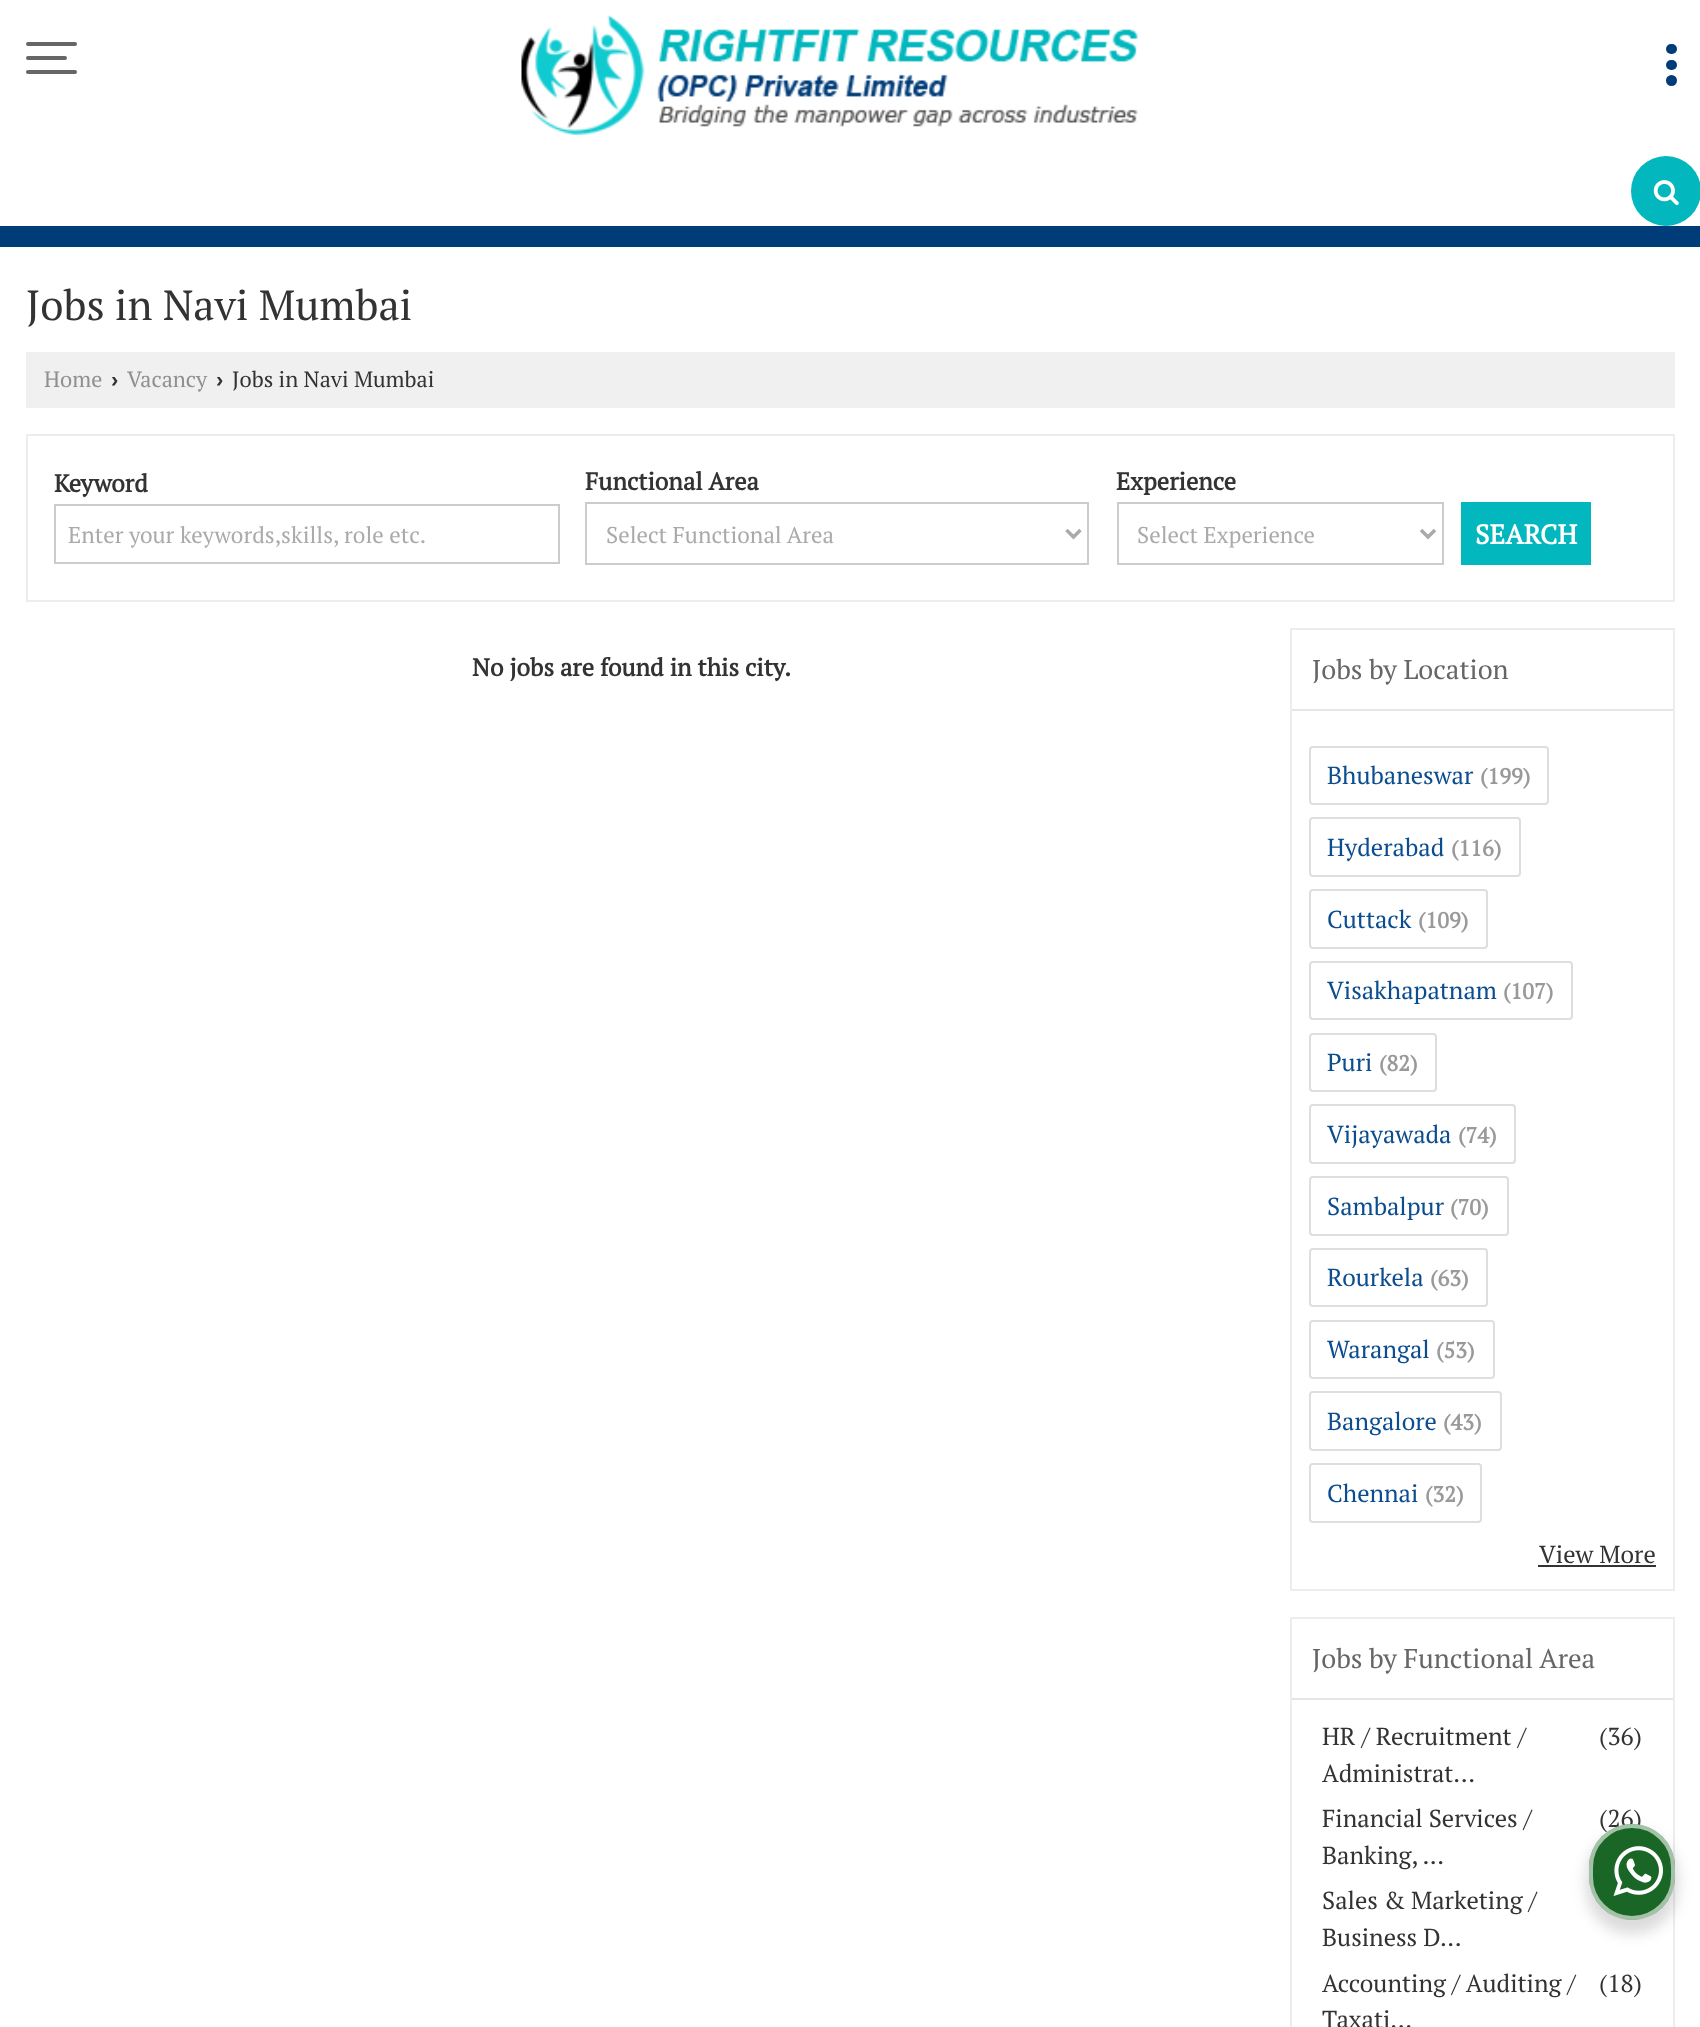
<!DOCTYPE html>
<meta charset="utf-8">
<style>body { margin: 0 } canvas { display: block }</style>
<canvas id="canvas" width="1700" height="2027"></canvas>
<script type="module">
  const canvas = document.getElementById("canvas");
  const g = canvas.getContext("2d");
  g.miterLimit = 4;
  g.fontKerning = "normal";
  function drawText(s, x, y, [font, color]) {
    g.font = font;
    g.fillStyle = color;
    g.fillText(s, x, y);
  }
  function fillBox(x, y, w, h, color) {
    g.fillStyle = color;
    g.fillRect(x, y, w, h);
  }
  function fillRounded(x, y, w, h, r, color) {
    g.fillStyle = color;
    g.beginPath();
    g.roundRect(x, y, w, h, r);
    g.fill();
  }
  async function drawPicture(src, x, y, w, h) {
    const img = new Image();
    img.src = src;
    await img.decode();
    g.drawImage(img, x, y, w, h);
  }

  const s1 = ["42px PT Serif", "#333333"];
  const s2 = ["22px PT Serif", "#909090"];
  const s3 = ["bold 22px Liberation Sans", "#333333"];
  const s4 = ["22px PT Serif", "#333333"];
  const s5 = ["bold 24.5px PT Serif", "#333333"];
  const s6 = ["22.75px PT Serif", "#AAAAAA"];
  const s7 = ["bold 27px PT Serif", "#FFFFFF"];
  const s8 = ["27px PT Serif", "#666666"];
  const s9 = ["24.5px PT Serif", "#0B4D8F"];
  const s10 = ["bold 22px PT Serif", "#999999"];
  const s11 = ["24.5px PT Serif", "#333333"];

  fillBox(0, 0, 1700, 2027, "#FFFFFF");
  await drawPicture("pic1.png", 521, 15, 617, 120);
  fillRounded(1666, 60, 11, 10, 5, "#003C78");
  fillRounded(1666, 44, 11, 10, 5, "#003C78");
  g.beginPath();
  g.arc(1671.5, 80.5, 5.5, 0, Math.PI * 2);
  g.fill();
  g.fillStyle = "#02B7BD";
  g.beginPath();
  g.arc(1666, 191, 35, 0, Math.PI * 2);
  g.fill();
  await drawPicture("pic2.png", 1653, 180, 26, 26);
  fillBox(0, 226, 1700, 21, "#003C78");
  fillRounded(26, 42, 51, 4, 2, "#666666");
  fillRounded(26, 56, 41, 4, 2, "#666666");
  fillRounded(26, 70, 51, 4, 2, "#666666");
  drawText("Jobs in Navi Mumbai", 26, 320, s1);
  fillBox(26, 352, 1649, 56, "#F0F0F0");
  drawText("Home", 44, 387, s2);
  drawText("›", 111, 387, s3);
  drawText("Vacancy", 127, 387, s2);
  drawText("›", 216, 387, s3);
  drawText("Jobs in Navi Mumbai", 232, 387, s4);
  g.strokeStyle = "#EDEDED";
  g.lineWidth = 2;
  g.strokeRect(27, 435, 1647, 166);
  drawText("Keyword", 54, 492, s5);
  g.strokeStyle = "#CCCCCC";
  g.strokeRect(55, 505, 504, 58);
  drawText("Enter your keywords,skills, role etc.", 68, 543, s6);
  drawText("Functional Area", 585, 490, s5);
  g.strokeRect(586, 503, 502, 61);
  g.beginPath();
  g.moveTo(1066.5, 530);
  g.lineTo(1073.5, 537);
  g.lineTo(1080.5, 530);
  g.strokeStyle = "#AAAAAA";
  g.lineWidth = 3.5;
  g.stroke();
  drawText("Select Functional Area", 606, 543, s6);
  drawText("Experience", 1116, 490, s5);
  g.strokeStyle = "#CCCCCC";
  g.lineWidth = 2;
  g.strokeRect(1118, 503, 325, 61);
  g.beginPath();
  g.moveTo(1421, 530);
  g.lineTo(1428, 537);
  g.lineTo(1435, 530);
  g.strokeStyle = "#AAAAAA";
  g.lineWidth = 3.5;
  g.stroke();
  drawText("Select Experience", 1137, 543, s6);
  fillBox(1461, 502, 130, 63, "#02B7BD");
  drawText("SEARCH", 1475, 544, s7);
  drawText("No jobs are found in this city.", 472, 676, s5);
  g.strokeStyle = "#EDEDED";
  g.lineWidth = 2;
  g.strokeRect(1291, 629, 383, 961);
  fillBox(1292, 709, 381, 2, "#E6E6E6");
  drawText("Jobs by Location", 1312, 679, s8);
  g.beginPath();
  g.roundRect(1310, 747, 238, 57, 3);
  g.strokeStyle = "#DEDEDE";
  g.stroke();
  drawText("Bhubaneswar", 1327, 784, s9);
  drawText("(199)", 1480, 784, s10);
  g.beginPath();
  g.roundRect(1310, 818, 210, 58, 3);
  g.stroke();
  drawText("Hyderabad", 1327, 856, s9);
  drawText("(116)", 1451, 856, s10);
  g.beginPath();
  g.roundRect(1310, 890, 177, 58, 3);
  g.stroke();
  drawText("Cuttack", 1327, 928, s9);
  drawText("(109)", 1418, 928, s10);
  g.beginPath();
  g.roundRect(1310, 962, 262, 57, 3);
  g.stroke();
  drawText("Visakhapatnam", 1327, 999, s9);
  drawText("(107)", 1503, 999, s10);
  g.beginPath();
  g.roundRect(1310, 1034, 126, 57, 3);
  g.stroke();
  drawText("Puri", 1327, 1071, s9);
  drawText("(82)", 1379, 1071, s10);
  g.beginPath();
  g.roundRect(1310, 1105, 205, 58, 3);
  g.stroke();
  drawText("Vijayawada", 1327, 1143, s9);
  drawText("(74)", 1458, 1143, s10);
  g.beginPath();
  g.roundRect(1310, 1177, 198, 58, 3);
  g.stroke();
  drawText("Sambalpur", 1327, 1215, s9);
  drawText("(70)", 1450, 1215, s10);
  g.beginPath();
  g.roundRect(1310, 1249, 177, 57, 3);
  g.stroke();
  drawText("Rourkela", 1327, 1286, s9);
  drawText("(63)", 1430, 1286, s10);
  g.beginPath();
  g.roundRect(1310, 1321, 184, 57, 3);
  g.stroke();
  drawText("Warangal", 1327, 1358, s9);
  drawText("(53)", 1436, 1358, s10);
  g.beginPath();
  g.roundRect(1310, 1392, 191, 58, 3);
  g.stroke();
  drawText("Bangalore", 1327, 1430, s9);
  drawText("(43)", 1443, 1430, s10);
  g.beginPath();
  g.roundRect(1310, 1464, 171, 58, 3);
  g.stroke();
  drawText("Chennai", 1327, 1502, s9);
  drawText("(32)", 1425, 1502, s10);
  drawText("View More", 1539, 1563, s11);
  fillBox(1538, 1565, 118, 2, "#333333");
  g.strokeStyle = "#EDEDED";
  g.strokeRect(1291, 1618, 383, 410);
  fillBox(1292, 1698, 381, 2, "#E6E6E6");
  drawText("Jobs by Functional Area", 1312, 1668, s8);
  drawText("HR / Recruitment /", 1322, 1745, s11);
  drawText("(36)", 1599, 1745, s11);
  drawText("Administrat...", 1322, 1782, s11);
  drawText("Financial Services /", 1322, 1827, s11);
  drawText("(26)", 1599, 1827, s11);
  drawText("Banking, ...", 1322, 1864, s11);
  drawText("Sales & Marketing /", 1322, 1909, s11);
  drawText("Business D...", 1322, 1946, s11);
  drawText("Accounting / Auditing /", 1322, 1992, s11);
  drawText("(18)", 1599, 1992, s11);
  drawText("Taxati...", 1322, 2028, s11);
  g.fillStyle = "rgba(0, 0, 0, 0.14)";
  g.filter = "blur(7px)";
  g.beginPath();
  g.roundRect(1586, 1831, 92, 103, 46);
  g.fill();
  g.filter = "none";
  fillRounded(1589, 1824, 86, 96, 43, "#196626");
  g.beginPath();
  g.roundRect(1591, 1826, 82, 92, 41);
  g.strokeStyle = "rgba(255, 255, 255, 0.6)";
  g.lineWidth = 4;
  g.stroke();
  await drawPicture("pic3.png", 1613, 1846, 50, 50);
</script>
